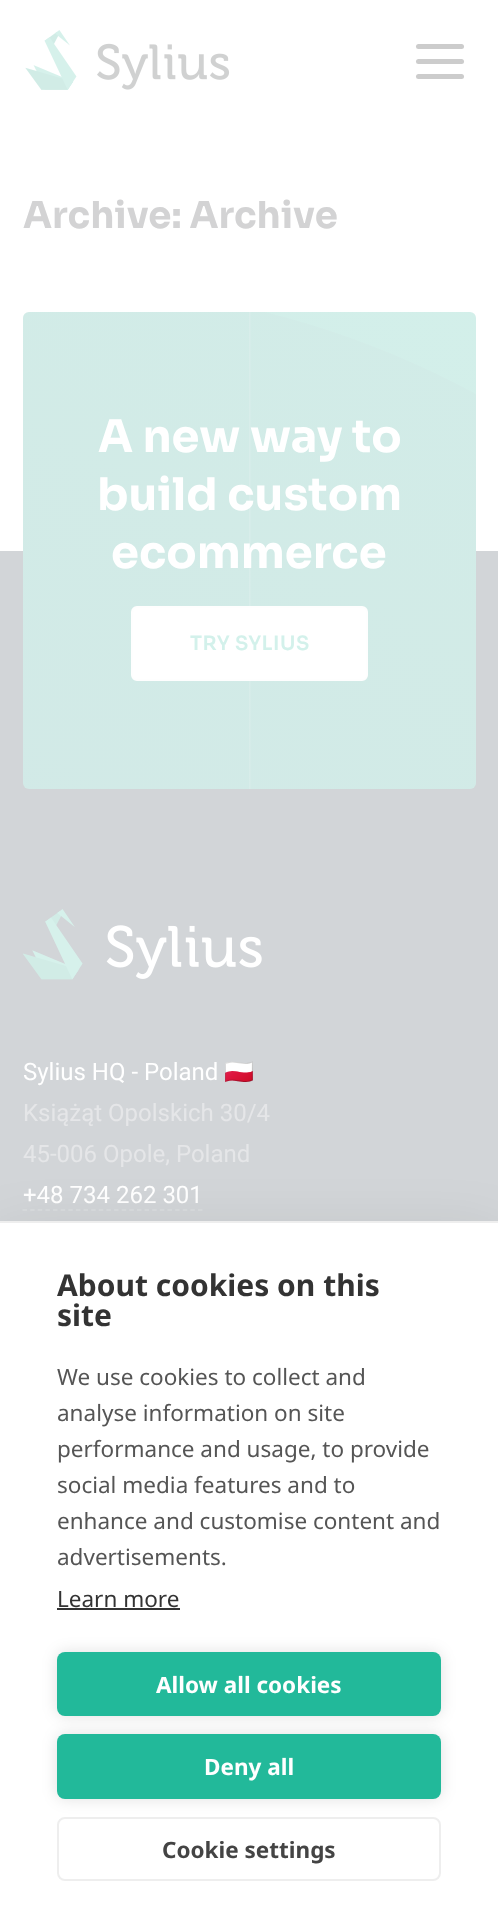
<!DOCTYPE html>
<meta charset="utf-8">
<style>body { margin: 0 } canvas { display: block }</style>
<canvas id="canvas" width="498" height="1918"></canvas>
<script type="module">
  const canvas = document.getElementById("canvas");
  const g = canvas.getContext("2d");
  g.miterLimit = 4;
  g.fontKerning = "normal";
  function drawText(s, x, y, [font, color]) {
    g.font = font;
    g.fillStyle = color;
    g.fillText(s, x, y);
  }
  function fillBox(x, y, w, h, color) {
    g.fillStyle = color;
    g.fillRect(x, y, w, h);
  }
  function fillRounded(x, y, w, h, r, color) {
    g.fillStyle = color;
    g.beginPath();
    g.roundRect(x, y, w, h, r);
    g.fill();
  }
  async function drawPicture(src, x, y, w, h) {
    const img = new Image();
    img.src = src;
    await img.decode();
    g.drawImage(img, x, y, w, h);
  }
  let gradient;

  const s1 = ["bold 37.1px Sora", "#D3D3D4"];
  const s2 = ["bold 44.75px Sora", "#FFFFFF"];
  const s3 = ["600 19.75px Sora", "#D3F1EB"];
  const s4 = ["24px Roboto", "#FFFFFF"];
  const s5 = ["24px Noto Color Emoji", "#FFFFFF"];
  const s6 = ["24px Roboto", "#E5E6E8"];
  const s7 = ["bold 30px Noto Sans", "#333333"];
  const s8 = ["22.5px Noto Sans", "#555555"];
  const s9 = ["22.5px Noto Sans", "#333333"];
  const s10 = ["bold 22.5px Noto Sans", "#FFFFFF"];
  const s11 = ["bold 22.5px Noto Sans", "#444444"];

  fillBox(0, 0, 498, 1918, "#FFFFFF");
  await drawPicture("pic1.png", 25, 30, 205, 60);
  fillRounded(416, 44, 48, 5, 2.5, "#CCCCCC");
  fillRounded(416, 59, 48, 5, 2.5, "#CCCCCC");
  fillRounded(416, 74, 48, 5, 2.5, "#CCCCCC");
  drawText("Archive: Archive", 23, 228, s1);
  fillBox(0, 551, 498, 670, "#D2D5D8");
  gradient = g.createLinearGradient(-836, 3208, 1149, -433);
  gradient.addColorStop(0, "#D2E4E2");
  gradient.addColorStop(0.9, "#D3F1EB");
  g.fillStyle = gradient;
  g.beginPath();
  g.roundRect(23, 312, 453, 477, 6);
  g.fill();
  await drawPicture("pic2.png", 23, 312, 453, 477);
  drawText("A new way to", 98, 452, s2);
  drawText("build custom", 97, 510, s2);
  drawText("ecommerce", 111, 568, s2);
  g.beginPath();
  g.roundRect(132, 607, 235, 73, 5);
  g.fill();
  g.strokeStyle = "#FEFEFE";
  g.lineWidth = 2;
  g.stroke();
  g.letterSpacing = "0.5px";
  drawText("TRY SYLIUS", 190, 650, s3);
  await drawPicture("pic3.png", 23, 909, 239, 71);
  g.letterSpacing = "0px";
  drawText("Sylius HQ - Poland", 23, 1080, s4);
  drawText("🇵🇱", 224, 1080, s5);
  drawText("Książąt Opolskich 30/4", 23, 1121, s6);
  drawText("45-006 Opole, Poland", 23, 1162, s6);
  drawText("+48 734 262 301", 23, 1203, s4);
  g.beginPath();
  g.moveTo(22.5, 1210);
  g.lineTo(202.5, 1210);
  g.strokeStyle = "#DBDEE0";
  g.lineWidth = 1.5;
  g.setLineDash([4.5, 3.13]);
  g.stroke();
  g.fillStyle = "rgba(0, 0, 0, 0.1)";
  g.filter = "blur(30px)";
  g.beginPath();
  g.rect(0, 1236, 498, 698);
  g.fill();
  g.filter = "none";
  fillBox(0, 1223, 498, 695, "#FFFFFF");
  fillBox(0, 1221, 498, 2, "#EEEEEE");
  drawText("About cookies on this", 57, 1296, s7);
  drawText("site", 57, 1326, s7);
  drawText("We use cookies to collect and", 57, 1385, s8);
  drawText("analyse information on site", 57, 1421, s8);
  drawText("performance and usage, to provide", 57, 1457, s8);
  drawText("social media features and to", 57, 1493, s8);
  drawText("enhance and customise content and", 57, 1529, s8);
  drawText("advertisements.", 57, 1565, s8);
  drawText("Learn more", 57, 1607, s9);
  fillBox(57, 1608, 123, 2, "#333333");
  g.fillStyle = "rgba(0, 0, 0, 0.12)";
  g.filter = "blur(7.5px)";
  g.beginPath();
  g.roundRect(57, 1652, 384, 64, 8);
  g.fill();
  g.filter = "none";
  fillRounded(57, 1652, 384, 64, 8, "#22B99A");
  drawText("Allow all cookies", 156, 1693, s10);
  g.fillStyle = "rgba(0, 0, 0, 0.12)";
  g.filter = "blur(7.5px)";
  g.beginPath();
  g.roundRect(57, 1734, 384, 65, 8);
  g.fill();
  g.filter = "none";
  fillRounded(57, 1734, 384, 65, 8, "#22B99A");
  drawText("Deny all", 204, 1775, s10);
  g.beginPath();
  g.roundRect(58, 1818, 382, 62, 7);
  g.strokeStyle = "#EEEEEE";
  g.lineWidth = 2;
  g.setLineDash([]);
  g.stroke();
  drawText("Cookie settings", 162, 1858, s11);
</script>
